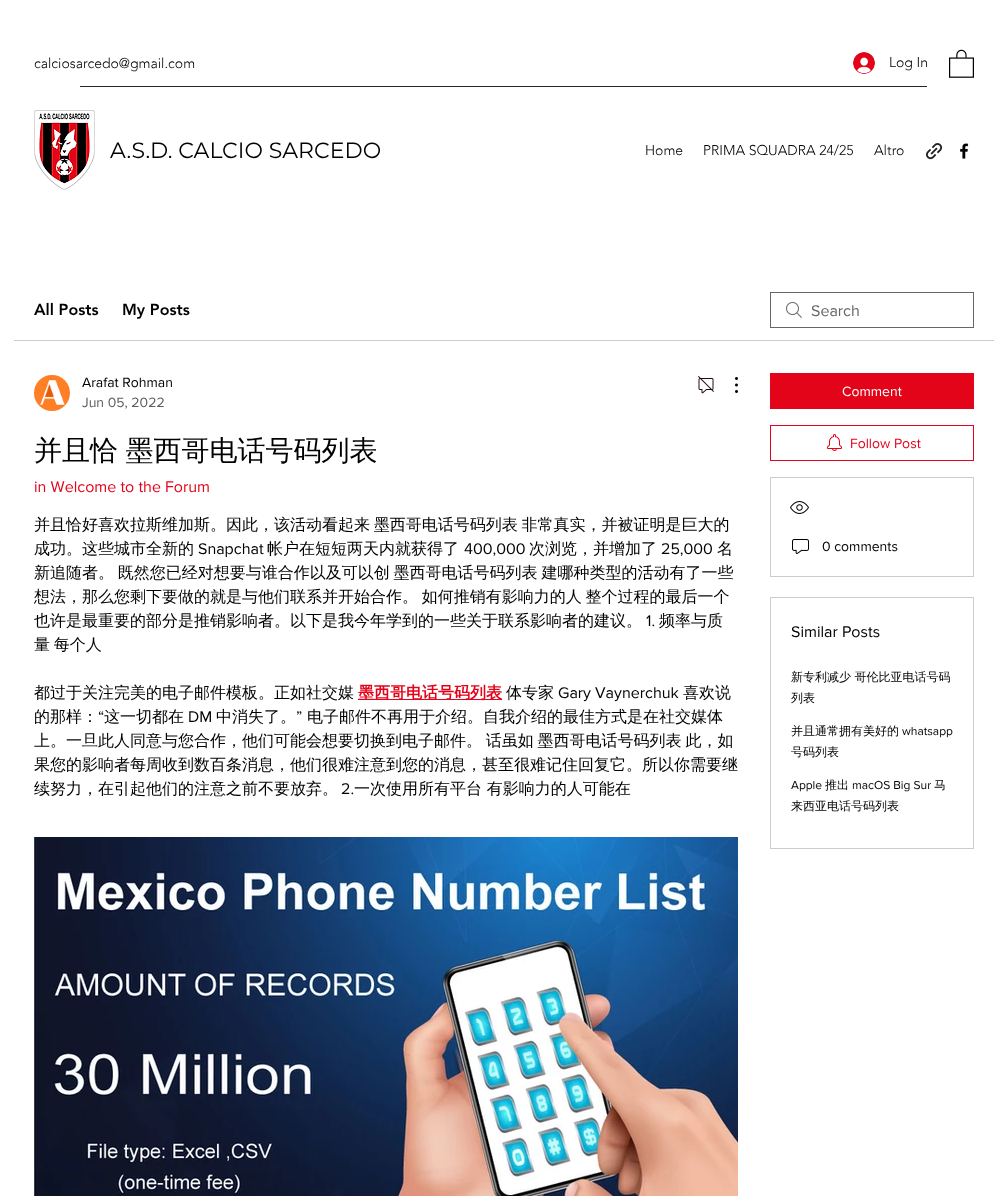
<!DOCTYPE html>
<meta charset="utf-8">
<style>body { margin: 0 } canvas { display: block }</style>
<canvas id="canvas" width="1007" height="1196"></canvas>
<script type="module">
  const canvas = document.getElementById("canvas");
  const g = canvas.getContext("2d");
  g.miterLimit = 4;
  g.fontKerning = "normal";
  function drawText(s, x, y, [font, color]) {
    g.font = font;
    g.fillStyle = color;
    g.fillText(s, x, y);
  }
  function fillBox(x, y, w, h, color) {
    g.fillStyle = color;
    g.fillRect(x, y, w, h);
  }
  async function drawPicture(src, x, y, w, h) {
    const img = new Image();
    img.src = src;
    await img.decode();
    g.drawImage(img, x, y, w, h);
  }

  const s1 = ["300 14px 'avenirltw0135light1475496'", "#000000"];
  const s2 = ["22px Montserrat", "#000000"];
  const s3 = ["900 16px 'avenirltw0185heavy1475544'", "#000000"];
  const s4 = ["16px 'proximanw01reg'", "#666666"];
  const s5 = ["14px 'proximanw01reg'", "#000000"];
  const s6 = ["14px 'proximanw01reg'", "#5C5C5C"];
  const s7 = ["500 28px WenQuanYi Zen Hei", "#000000"];
  const s8 = ["16px 'proximanw01reg'", "#E4041A"];
  const s9 = ["500 16px WenQuanYi Zen Hei", "#000000"];
  const s10 = ["16px 'proximanw01reg'", "#000000"];
  const s11 = ["bold 16px WenQuanYi Zen Hei", "#E4041A"];
  const s12 = ["14px 'proximanw01reg'", "#FFFFFF"];
  const s13 = ["14px 'proximanw01reg'", "#E4041A"];
  const s14 = ["500 12px WenQuanYi Zen Hei", "#000000"];
  const s15 = ["12px 'proximanw01reg'", "#000000"];

  fillBox(0, 0, 1007, 1196, "#FFFFFF");
  drawText("calciosarcedo@gmail.com", 34, 68, s1);
  await drawPicture("pic1.png", 853, 52, 22, 22);
  drawText("Log In", 889, 67, s1);
  await drawPicture("pic2.png", 949, 49, 25, 29);
  fillBox(80, 86, 847, 1, "#262626");
  await drawPicture("pic3.png", 34, 110, 61, 80);
  drawText("A.S.D. CALCIO SARCEDO", 110, 158, s2);
  drawText("Home", 645, 155, s1);
  drawText("PRIMA SQUADRA 24/25", 703, 155, s1);
  drawText("Altro", 874, 155, s1);
  await drawPicture("pic4.png", 925, 142, 18, 18);
  await drawPicture("pic5.png", 960, 143, 9, 16);
  fillBox(14, 340, 980, 1, "#CCCCCC");
  drawText("All Posts", 34, 315, s3);
  drawText("My Posts", 122, 315, s3);
  await drawPicture("pic6.png", 786, 302, 16, 16);
  g.strokeStyle = "#666666";
  g.strokeRect(770.5, 292.5, 203, 35);
  drawText("Search", 811, 316, s4);
  await drawPicture("pic7.png", 34, 375, 36, 36);
  drawText("Arafat Rohman", 82, 387, s5);
  drawText("Jun 05, 2022", 82, 407, s6);
  await drawPicture("pic8.png", 698, 376, 16, 18);
  await drawPicture("pic9.png", 735, 377, 3, 16);
  g.wordSpacing = "-1px";
  drawText("并且恰 墨西哥电话号码列表", 34, 460, s7);
  g.wordSpacing = "0px";
  drawText("in Welcome to the Forum", 34, 492, s8);
  g.wordSpacing = "-1px";
  drawText("并且恰好喜欢拉斯维加斯。因此，该活动看起来 墨西哥电话号码列表 非常真实，并被证明是巨大的", 34, 530, s9);
  g.wordSpacing = "0px";
  drawText("成功。这些城市全新的", 34, 554, s9);
  drawText("Snapchat", 198, 554, s10);
  drawText("帐户在短短两天内就获得了", 267, 554, s9);
  drawText("400,000", 464, 554, s10);
  drawText("次浏览，并增加了", 529, 554, s9);
  drawText("25,000", 661, 554, s10);
  drawText("名", 717, 554, s9);
  g.wordSpacing = "-1px";
  drawText("新追随者。 既然您已经对想要与谁合作以及可以创 墨西哥电话号码列表 建哪种类型的活动有了一些", 34, 578, s9);
  drawText("想法，那么您剩下要做的就是与他们联系并开始合作。 如何推销有影响力的人 整个过程的最后一个", 34, 602, s9);
  g.wordSpacing = "0px";
  drawText("也许是最重要的部分是推销影响者。以下是我今年学到的一些关于联系影响者的建议。", 34, 626, s9);
  drawText("1.", 646, 626, s10);
  drawText("频率与质", 659, 626, s9);
  g.wordSpacing = "-1px";
  drawText("量 每个人", 34, 650, s9);
  g.wordSpacing = "0px";
  drawText("都过于关注完美的电子邮件模板。正如社交媒", 34, 698, s9);
  fillBox(358, 699, 144, 1, "#E4041A");
  drawText("墨西哥电话号码列表", 358, 698, s11);
  drawText("体专家", 506, 698, s9);
  drawText("Gary Vaynerchuk", 558, 698, s10);
  drawText("喜欢说", 683, 698, s9);
  drawText("的那样：", 34, 722, s9);
  drawText("“", 98, 722, s10);
  drawText("这一切都在", 104, 722, s9);
  drawText("DM", 188, 722, s10);
  drawText("中消失了。", 216, 722, s9);
  drawText("”", 296, 722, s10);
  drawText("电子邮件不再用于介绍。自我介绍的最佳方式是在社交媒体", 307, 722, s9);
  g.wordSpacing = "-1px";
  drawText("上。一旦此人同意与您合作，他们可能会想要切换到电子邮件。 话虽如 墨西哥电话号码列表 此，如", 34, 746, s9);
  g.wordSpacing = "0px";
  drawText("果您的影响者每周收到数百条消息，他们很难注意到您的消息，甚至很难记住回复它。所以你需要继", 34, 770, s9);
  drawText("续努力，在引起他们的注意之前不要放弃。", 34, 794, s9);
  drawText("2.", 341, 794, s10);
  drawText("一次使用所有平台 有影响力的人可能在", 354, 794, s9);
  await drawPicture("pic10.png", 34, 837, 704, 359);
  fillBox(770, 373, 204, 36, "#E4041A");
  drawText("Comment", 842, 396, s12);
  g.strokeStyle = "#E4041A";
  g.strokeRect(770.5, 425.5, 203, 35);
  await drawPicture("pic11.png", 827, 434, 15, 17);
  drawText("Follow Post", 850, 448, s13);
  g.strokeStyle = "#CCCCCC";
  g.strokeRect(770.5, 477.5, 203, 99);
  await drawPicture("pic12.png", 790, 501, 19, 13);
  await drawPicture("pic13.png", 792, 539, 17, 15);
  drawText("0 comments", 822, 551, s5);
  g.strokeRect(770.5, 597.5, 203, 251);
  drawText("Similar Posts", 791, 637, s10);
  drawText("新专利减少 哥伦比亚电话号码", 791, 681, s14);
  drawText("列表", 791, 702, s14);
  drawText("并且通常拥有美好的", 791, 735, s14);
  drawText("whatsapp", 902, 735, s15);
  drawText("号码列表", 791, 756, s14);
  drawText("Apple", 791, 789, s15);
  drawText("推出", 825, 789, s14);
  drawText("macOS Big Sur", 852, 789, s15);
  drawText("马", 934, 789, s14);
  drawText("来西亚电话号码列表", 791, 810, s14);
</script>
